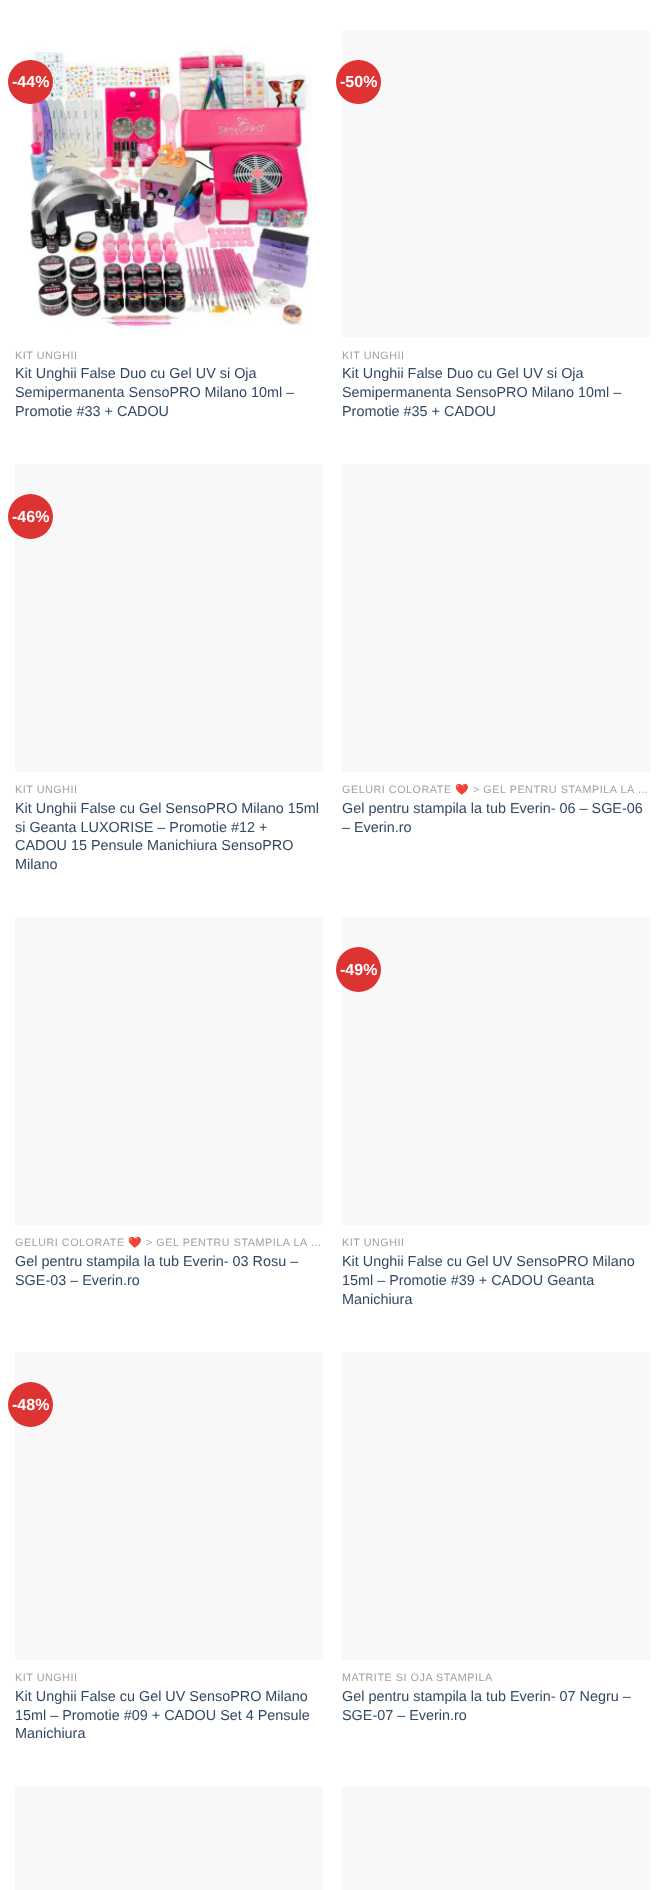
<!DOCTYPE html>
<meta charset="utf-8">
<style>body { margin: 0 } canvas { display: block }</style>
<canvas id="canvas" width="665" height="1890"></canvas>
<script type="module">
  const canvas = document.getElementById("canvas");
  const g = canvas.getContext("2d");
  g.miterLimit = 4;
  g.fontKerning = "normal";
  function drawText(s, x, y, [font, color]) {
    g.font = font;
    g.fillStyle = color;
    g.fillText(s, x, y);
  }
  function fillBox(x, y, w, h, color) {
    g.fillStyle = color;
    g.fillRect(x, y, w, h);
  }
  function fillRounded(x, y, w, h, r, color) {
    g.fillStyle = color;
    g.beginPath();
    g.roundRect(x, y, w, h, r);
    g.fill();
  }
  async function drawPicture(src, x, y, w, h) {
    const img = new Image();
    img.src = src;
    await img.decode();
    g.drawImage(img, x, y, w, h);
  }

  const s1 = ["bold 16px Liberation Sans", "#FFFFFF"];
  const s2 = ["10.75px Liberation Sans", "#A0A0A0"];
  const s3 = ["14.4px Liberation Sans", "#334862"];
  const s4 = ["10.75px Noto Color Emoji", "#A0A0A0"];

  fillBox(0, 0, 665, 1890, "#FFFFFF");
  await drawPicture("pic1.png", 27, 45, 285, 284);
  fillRounded(8, 60, 45, 44, 22, "#DD3333");
  drawText("-44%", 12, 87, s1);
  g.letterSpacing = "0.55px";
  drawText("KIT UNGHII", 15, 359, s2);
  g.letterSpacing = "0px";
  drawText("Kit Unghii False Duo cu Gel UV si Oja", 15, 378, s3);
  drawText("Semipermanenta SensoPRO Milano 10ml –", 15, 397, s3);
  drawText("Promotie #33 + CADOU", 15, 416, s3);
  fillBox(342, 30, 308, 307, "#F8F8F8");
  fillRounded(336, 60, 45, 44, 22, "#DD3333");
  drawText("-50%", 340, 87, s1);
  g.letterSpacing = "0.55px";
  drawText("KIT UNGHII", 342, 359, s2);
  g.letterSpacing = "0px";
  drawText("Kit Unghii False Duo cu Gel UV si Oja", 342, 378, s3);
  drawText("Semipermanenta SensoPRO Milano 10ml –", 342, 397, s3);
  drawText("Promotie #35 + CADOU", 342, 416, s3);
  fillBox(15, 464, 308, 308, "#F8F8F8");
  g.fillStyle = "#DD3333";
  g.beginPath();
  g.arc(30.5, 516.5, 22.5, 0, Math.PI * 2);
  g.fill();
  drawText("-46%", 12, 522, s1);
  g.letterSpacing = "0.55px";
  drawText("KIT UNGHII", 15, 793, s2);
  g.letterSpacing = "0px";
  drawText("Kit Unghii False cu Gel SensoPRO Milano 15ml", 15, 813, s3);
  drawText("si Geanta LUXORISE – Promotie #12 +", 15, 832, s3);
  drawText("CADOU 15 Pensule Manichiura SensoPRO", 15, 850, s3);
  drawText("Milano", 15, 869, s3);
  fillBox(342, 464, 308, 308, "#F8F8F8");
  g.letterSpacing = "0.55px";
  drawText("GELURI COLORATE", 342, 793, s2);
  drawText("❤️", 455, 793, s4);
  drawText("> GEL PENTRU STAMPILA LA …", 473, 793, s2);
  g.letterSpacing = "0px";
  drawText("Gel pentru stampila la tub Everin- 06 – SGE-06", 342, 813, s3);
  drawText("– Everin.ro", 342, 832, s3);
  fillBox(15, 917, 308, 308, "#F8F8F8");
  g.letterSpacing = "0.55px";
  drawText("GELURI COLORATE", 15, 1246, s2);
  drawText("❤️", 128, 1246, s4);
  drawText("> GEL PENTRU STAMPILA LA …", 146, 1246, s2);
  g.letterSpacing = "0px";
  drawText("Gel pentru stampila la tub Everin- 03 Rosu –", 15, 1266, s3);
  drawText("SGE-03 – Everin.ro", 15, 1285, s3);
  fillBox(342, 917, 308, 308, "#F8F8F8");
  g.fillStyle = "#DD3333";
  g.beginPath();
  g.arc(358.5, 969.5, 22.5, 0, Math.PI * 2);
  g.fill();
  drawText("-49%", 340, 975, s1);
  g.letterSpacing = "0.55px";
  drawText("KIT UNGHII", 342, 1246, s2);
  g.letterSpacing = "0px";
  drawText("Kit Unghii False cu Gel UV SensoPRO Milano", 342, 1266, s3);
  drawText("15ml – Promotie #39 + CADOU Geanta", 342, 1285, s3);
  drawText("Manichiura", 342, 1304, s3);
  fillBox(15, 1352, 308, 308, "#F8F8F8");
  g.fillStyle = "#DD3333";
  g.beginPath();
  g.arc(30.5, 1404.5, 22.5, 0, Math.PI * 2);
  g.fill();
  drawText("-48%", 12, 1410, s1);
  g.letterSpacing = "0.55px";
  drawText("KIT UNGHII", 15, 1681, s2);
  g.letterSpacing = "0px";
  drawText("Kit Unghii False cu Gel UV SensoPRO Milano", 15, 1701, s3);
  drawText("15ml – Promotie #09 + CADOU Set 4 Pensule", 15, 1720, s3);
  drawText("Manichiura", 15, 1738, s3);
  fillBox(342, 1352, 308, 308, "#F8F8F8");
  g.letterSpacing = "0.55px";
  drawText("MATRITE SI OJA STAMPILA", 342, 1681, s2);
  g.letterSpacing = "0px";
  drawText("Gel pentru stampila la tub Everin- 07 Negru –", 342, 1701, s3);
  drawText("SGE-07 – Everin.ro", 342, 1720, s3);
  fillBox(15, 1787, 308, 103, "#F7F7F7");
  fillBox(342, 1787, 308, 103, "#F7F7F7");
</script>
